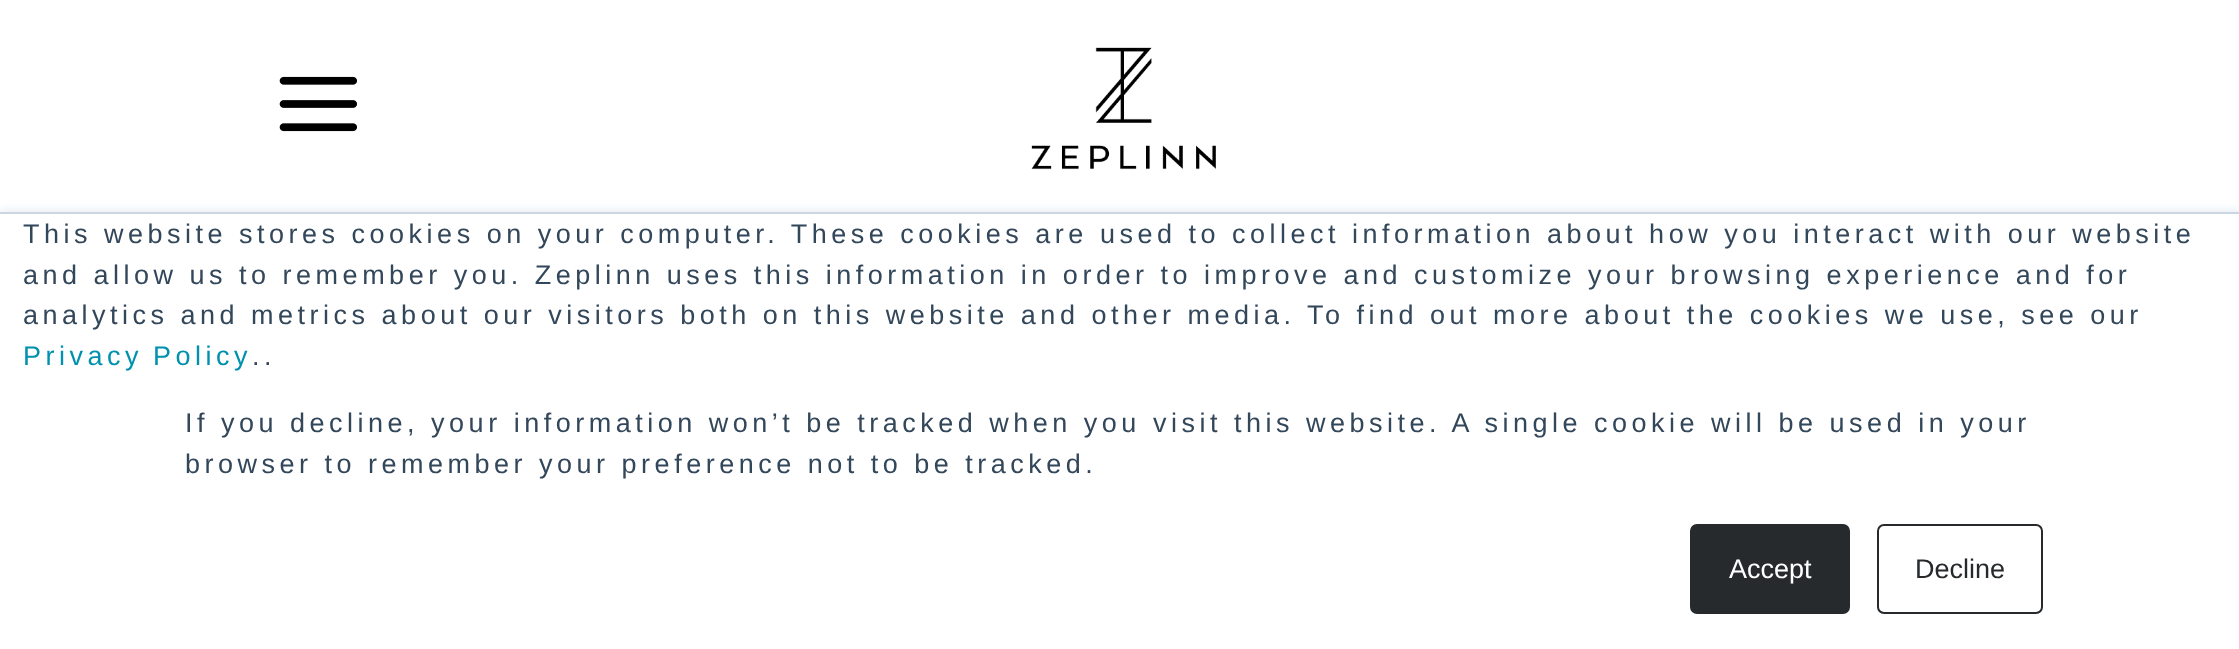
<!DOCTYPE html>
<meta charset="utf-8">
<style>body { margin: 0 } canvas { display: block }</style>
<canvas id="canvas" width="2239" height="649"></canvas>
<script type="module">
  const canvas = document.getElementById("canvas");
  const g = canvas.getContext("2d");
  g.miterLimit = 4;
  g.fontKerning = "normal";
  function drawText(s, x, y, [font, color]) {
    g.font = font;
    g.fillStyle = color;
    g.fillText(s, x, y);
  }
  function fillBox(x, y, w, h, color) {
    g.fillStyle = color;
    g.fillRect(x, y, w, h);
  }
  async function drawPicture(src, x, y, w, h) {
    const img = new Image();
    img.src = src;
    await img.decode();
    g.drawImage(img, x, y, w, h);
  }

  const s1 = ["27px Liberation Sans", "#33475B"];
  const s2 = ["27px Liberation Sans", "#0091AE"];
  const s3 = ["27px Liberation Sans", "#FFFFFF"];
  const s4 = ["27px Liberation Sans", "#262A2D"];

  fillBox(0, 0, 2239, 649, "#FFFFFF");
  await drawPicture("pic1.png", 279, 76, 78, 56);
  await drawPicture("pic2.png", 1031, 47, 185, 123);
  g.fillStyle = "#EAF0F6";
  g.filter = "blur(3.5px)";
  g.beginPath();
  g.rect(0, 209, 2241, 439);
  g.fill();
  g.filter = "none";
  fillBox(0, 214, 2239, 435, "#FFFFFF");
  fillBox(0, 212, 2239, 2, "#CBD6E2");
  g.letterSpacing = "4.5px";
  drawText("This website stores cookies on your computer. These cookies are used to collect information about how you interact with our website", 23, 243, s1);
  drawText("and allow us to remember you. Zeplinn uses this information in order to improve and customize your browsing experience and for", 23, 284, s1);
  drawText("analytics and metrics about our visitors both on this website and other media. To find out more about the cookies we use, see our", 23, 324, s1);
  g.wordSpacing = "-2px";
  drawText("Privacy Policy", 23, 365, s2);
  g.wordSpacing = "0px";
  drawText("..", 252, 365, s1);
  drawText("If you decline, your information won’t be tracked when you visit this website. A single cookie will be used in your", 185, 432, s1);
  drawText("browser to remember your preference not to be tracked.", 185, 473, s1);
  g.fillStyle = "#262A2D";
  g.beginPath();
  g.roundRect(1691, 525, 158, 88, 6);
  g.fill();
  g.strokeStyle = "#262A2D";
  g.lineWidth = 2;
  g.stroke();
  g.letterSpacing = "0px";
  drawText("Accept", 1729, 578, s3);
  g.beginPath();
  g.roundRect(1878, 525, 164, 88, 6);
  g.stroke();
  drawText("Decline", 1915, 578, s4);
</script>
